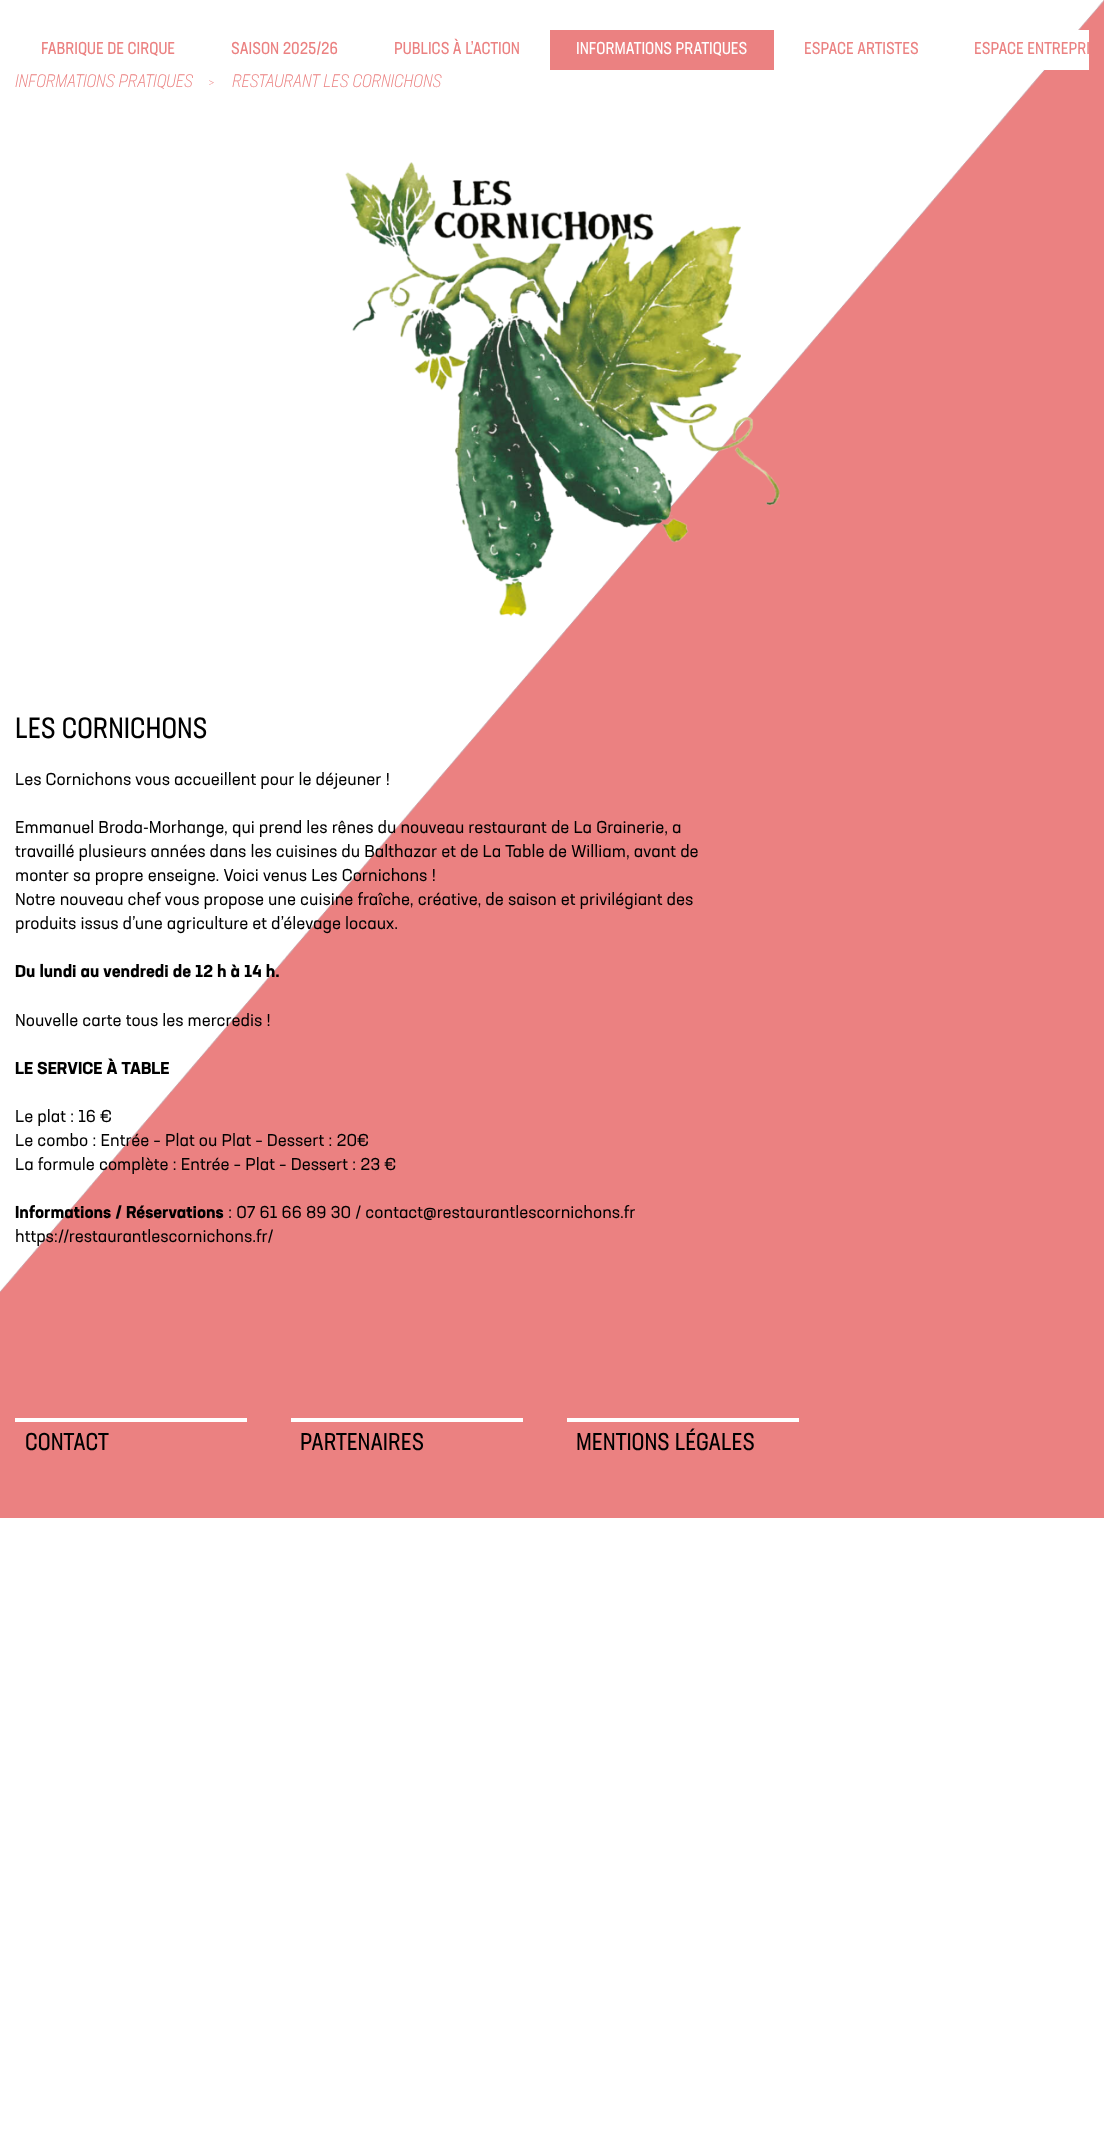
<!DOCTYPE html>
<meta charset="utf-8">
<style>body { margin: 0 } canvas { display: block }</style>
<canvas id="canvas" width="1104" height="2132"></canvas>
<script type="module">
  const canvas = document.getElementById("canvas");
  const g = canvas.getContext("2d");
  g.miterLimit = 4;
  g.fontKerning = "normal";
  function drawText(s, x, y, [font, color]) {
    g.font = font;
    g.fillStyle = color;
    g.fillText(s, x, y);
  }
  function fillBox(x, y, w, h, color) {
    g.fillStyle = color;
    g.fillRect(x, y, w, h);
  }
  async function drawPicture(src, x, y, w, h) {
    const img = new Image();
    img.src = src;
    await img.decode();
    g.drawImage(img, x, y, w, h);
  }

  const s1 = ["17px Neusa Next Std", "#EB8181"];
  const s2 = ["17px Neusa Next Std", "#FFFFFF"];
  const s3 = ["italic 300 18px Neusa Next Std", "#EB8181"];
  const s4 = ["italic 10px Liberation Serif", "#EB8181"];
  const s5 = ["29px Neusa Next Std", "#000000"];
  const s6 = ["17px 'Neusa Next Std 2'", "#000000"];
  const s7 = ["bold 17px Neusa Next Std", "#000000"];
  const s8 = ["24px Neusa Next Std", "#000000"];

  fillBox(0, 0, 1104, 2132, "#FFFFFF");
  await drawPicture("pic1.png", 0, 0, 1104, 1518);
  fillBox(1044, 30, 45, 40, "#FFFFFF");
  drawText("FABRIQUE DE CIRQUE", 41, 54, s1);
  drawText("SAISON 2025/26", 231, 54, s1);
  drawText("PUBLICS À L’ACTION", 394, 54, s1);
  fillBox(550, 30, 224, 40, "#EB8181");
  drawText("INFORMATIONS PRATIQUES", 576, 54, s2);
  drawText("ESPACE ARTISTES", 804, 54, s1);
  drawText("ESPACE ENTREPRI", 974, 54, s1);
  drawText("INFORMATIONS PRATIQUES", 15, 87, s3);
  drawText(">", 208, 86, s4);
  drawText("RESTAURANT LES CORNICHONS", 232, 87, s3);
  await drawPicture("pic2.png", 345, 162, 435, 455);
  drawText("LES CORNICHONS", 15, 738, s5);
  drawText("Les Cornichons vous accueillent pour le déjeuner !", 15, 785, s6);
  drawText("Emmanuel Broda-Morhange, qui prend les rênes du nouveau restaurant de La Grainerie, a", 15, 833, s6);
  drawText("travaillé plusieurs années dans les cuisines du Balthazar et de La Table de William, avant de", 15, 857, s6);
  drawText("monter sa propre enseigne. Voici venus Les Cornichons !", 15, 881, s6);
  drawText("Notre nouveau chef vous propose une cuisine fraîche, créative, de saison et privilégiant des", 15, 905, s6);
  drawText("produits issus d’une agriculture et d’élevage locaux.", 15, 929, s6);
  drawText("Du lundi au vendredi de 12 h à 14 h.", 15, 977, s7);
  drawText("Nouvelle carte tous les mercredis !", 15, 1026, s6);
  drawText("LE SERVICE À TABLE", 15, 1074, s7);
  drawText("Le plat : 16 €", 15, 1122, s6);
  drawText("Le combo : Entrée – Plat ou Plat – Dessert : 20€", 15, 1146, s6);
  drawText("La formule complète : Entrée – Plat – Dessert : 23 €", 15, 1170, s6);
  drawText("Informations / Réservations", 15, 1218, s7);
  drawText(": 07 61 66 89 30 / contact@restaurantlescornichons.fr", 228, 1218, s6);
  drawText("https://restaurantlescornichons.fr/", 15, 1242, s6);
  fillBox(15, 1418, 232, 4, "#FFFFFF");
  drawText("CONTACT", 25, 1450, s8);
  fillBox(291, 1418, 232, 4, "#FFFFFF");
  drawText("PARTENAIRES", 300, 1450, s8);
  fillBox(567, 1418, 232, 4, "#FFFFFF");
  drawText("MENTIONS LÉGALES", 576, 1450, s8);
</script>
